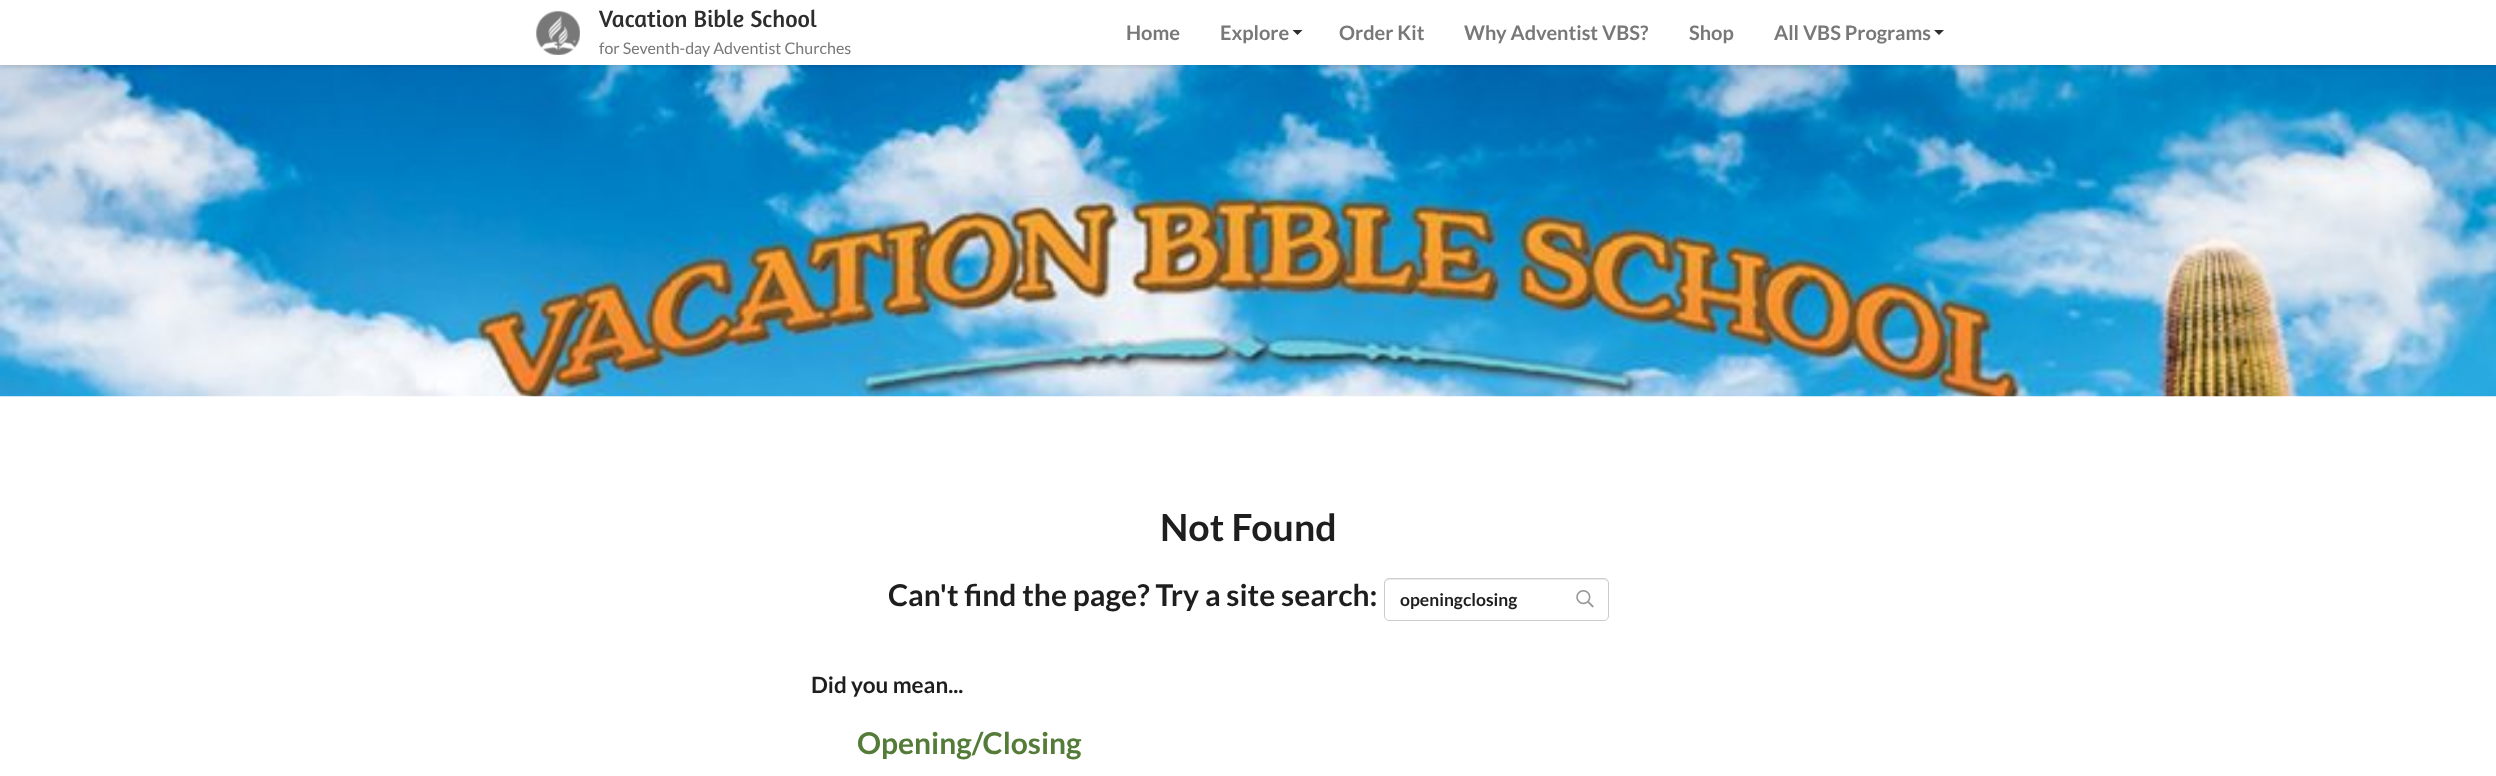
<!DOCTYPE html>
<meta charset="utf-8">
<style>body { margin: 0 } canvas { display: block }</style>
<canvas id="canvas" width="2496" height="776"></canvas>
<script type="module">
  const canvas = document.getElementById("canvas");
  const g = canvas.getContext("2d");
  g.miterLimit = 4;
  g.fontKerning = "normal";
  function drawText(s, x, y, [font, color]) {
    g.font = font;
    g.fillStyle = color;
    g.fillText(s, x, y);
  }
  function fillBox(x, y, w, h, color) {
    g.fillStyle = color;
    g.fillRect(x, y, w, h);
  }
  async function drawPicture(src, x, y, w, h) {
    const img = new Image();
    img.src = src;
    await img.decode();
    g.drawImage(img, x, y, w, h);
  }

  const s1 = ["24px Amaranth", "#2D2D2D"];
  const s2 = ["16px Lato", "#787878"];
  const s3 = ["bold 20px Lato", "#787878"];
  const s4 = ["bold 37.5px Lato", "#1E1E1E"];
  const s5 = ["bold 30px Lato", "#1E1E1E"];
  const s6 = ["bold 17.5px Lato", "#1E1E1E"];
  const s7 = ["bold 22.5px Lato", "#1E1E1E"];
  const s8 = ["bold 30px Lato", "#547B37"];

  fillBox(0, 0, 2496, 776, "#FFFFFF");
  await drawPicture("pic2.png", 0, 65, 2496, 332);
  g.save();
  g.beginPath();
  g.rect(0, 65, 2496, 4);
  g.clip();
  g.fillStyle = "rgba(0, 0, 0, 0.2)";
  g.filter = "blur(3px)";
  g.beginPath();
  g.rect(0, 0, 2496, 65);
  g.fill();
  g.filter = "none";
  g.restore();
  await drawPicture("pic1.png", 535, 10, 45, 45);
  drawText("Vacation Bible School", 599, 27, s1);
  drawText("for Seventh-day Adventist Churches", 599, 54, s2);
  drawText("Home", 1126, 40, s3);
  drawText("Explore", 1220, 40, s3);
  g.fillStyle = "#2D2D2D";
  g.beginPath();
  g.moveTo(1292.5, 30);
  g.lineTo(1302.5, 30);
  g.lineTo(1297.5, 35);
  g.closePath();
  g.fill();
  drawText("Order Kit", 1339, 40, s3);
  drawText("Why Adventist VBS?", 1464, 40, s3);
  drawText("Shop", 1689, 40, s3);
  drawText("All VBS Programs", 1774, 40, s3);
  g.fillStyle = "#2D2D2D";
  g.beginPath();
  g.moveTo(1934, 30);
  g.lineTo(1944, 30);
  g.lineTo(1939, 35);
  g.closePath();
  g.fill();
  drawText("Not Found", 1160, 541, s4);
  drawText("Can't find the page? Try a site search:", 888, 606, s5);
  g.fillStyle = "#EBEBEB";
  g.beginPath();
  g.moveTo(1389, 580);
  g.lineTo(1604, 580);
  g.bezierCurveTo(1606, 580, 1608, 582, 1608, 584);
  g.bezierCurveTo(1608, 581, 1607, 579, 1604, 579);
  g.lineTo(1389, 579);
  g.bezierCurveTo(1386, 579, 1385, 581, 1385, 584);
  g.bezierCurveTo(1385, 582, 1387, 580, 1389, 580);
  g.closePath();
  g.fill();
  g.beginPath();
  g.roundRect(1384.5, 578.5, 224, 42, 4.5);
  g.strokeStyle = "#CCCCCC";
  g.stroke();
  drawText("openingclosing", 1400, 606, s6);
  await drawPicture("pic3.png", 1576, 590, 18, 18);
  drawText("Did you mean...", 811, 693, s7);
  drawText("Opening/Closing", 857, 754, s8);
</script>
